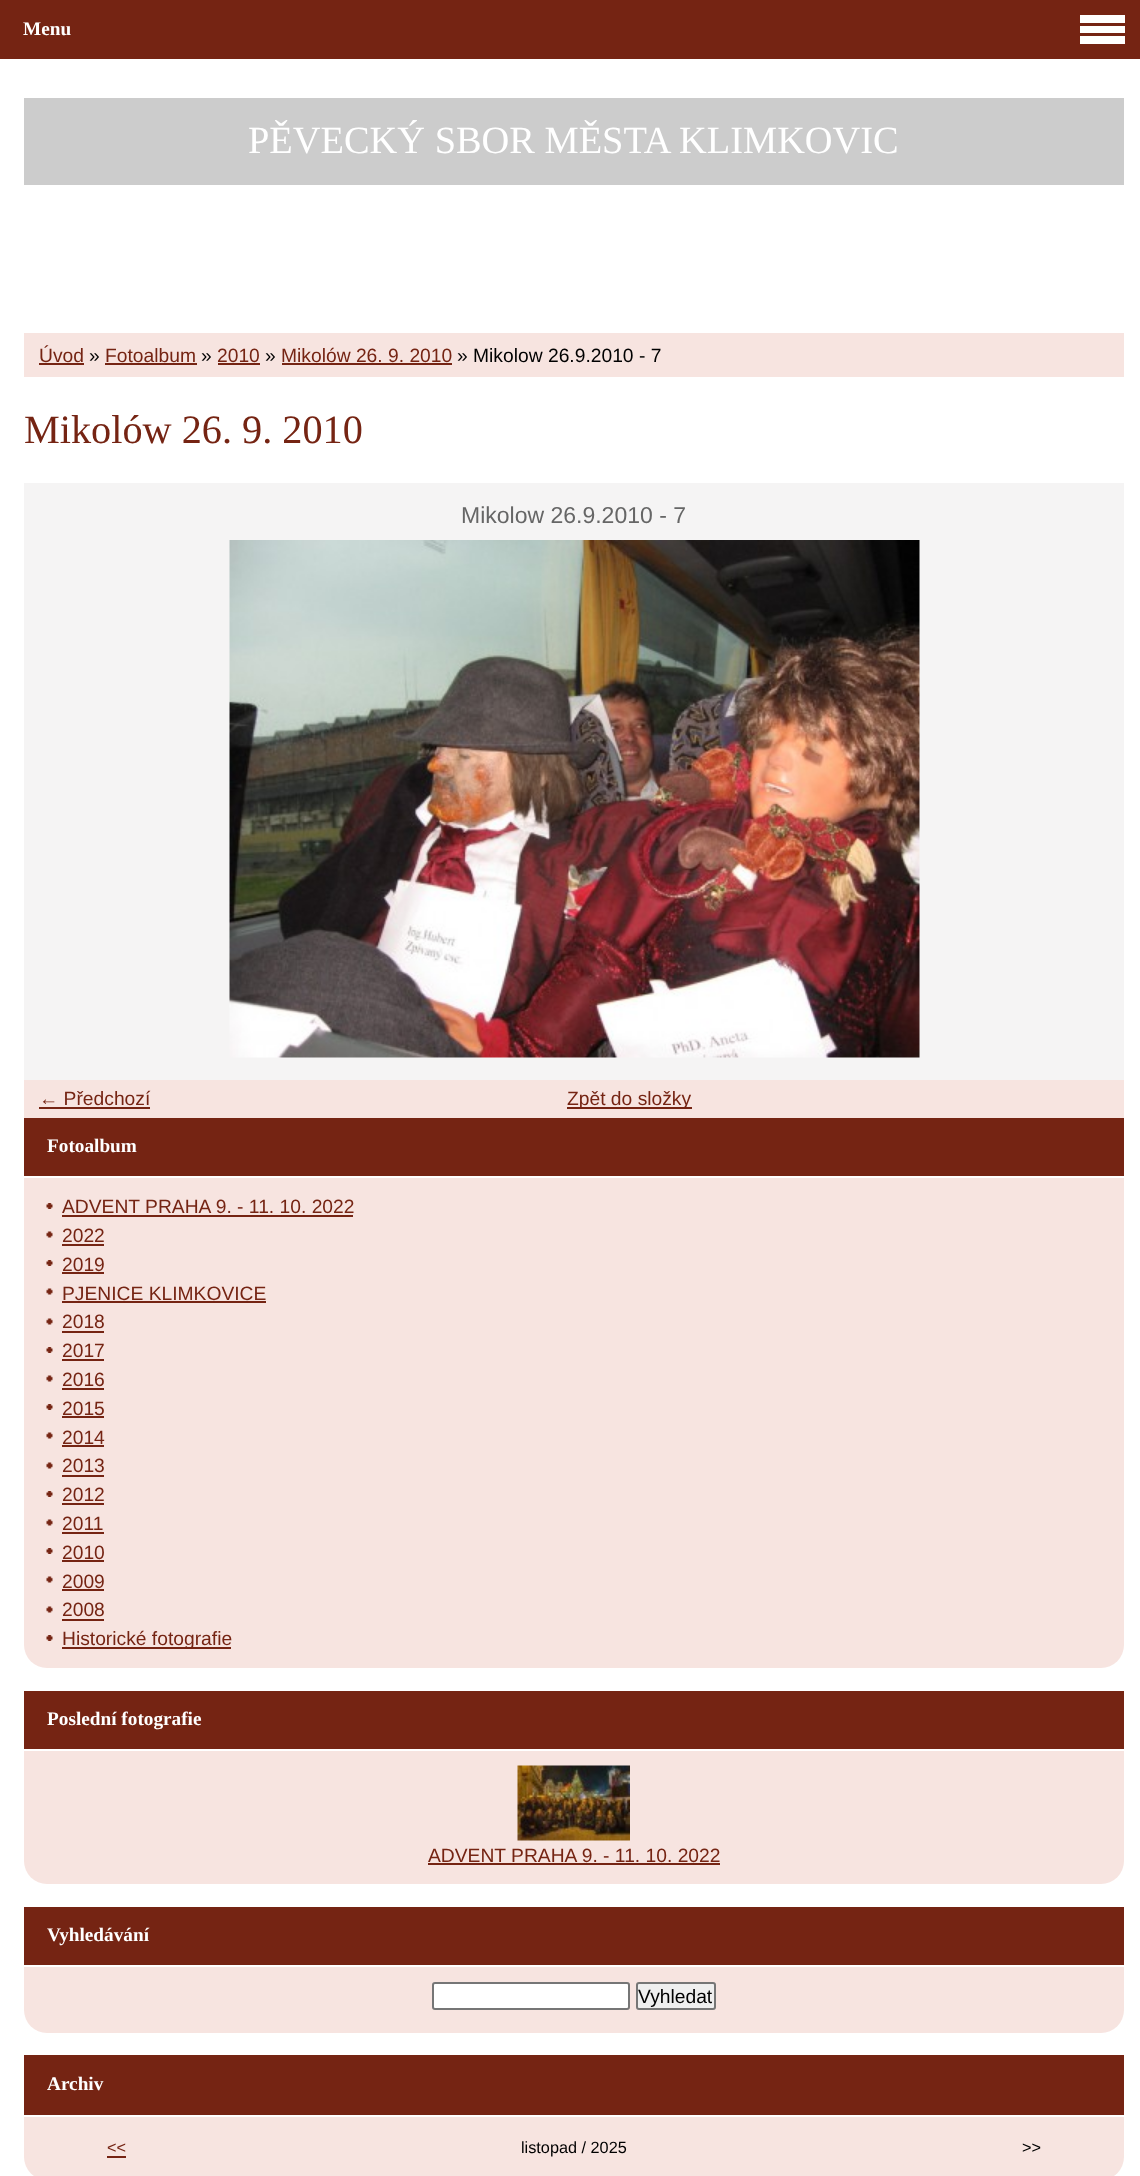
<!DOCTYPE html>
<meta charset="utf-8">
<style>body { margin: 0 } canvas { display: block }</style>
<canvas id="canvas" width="1140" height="2176"></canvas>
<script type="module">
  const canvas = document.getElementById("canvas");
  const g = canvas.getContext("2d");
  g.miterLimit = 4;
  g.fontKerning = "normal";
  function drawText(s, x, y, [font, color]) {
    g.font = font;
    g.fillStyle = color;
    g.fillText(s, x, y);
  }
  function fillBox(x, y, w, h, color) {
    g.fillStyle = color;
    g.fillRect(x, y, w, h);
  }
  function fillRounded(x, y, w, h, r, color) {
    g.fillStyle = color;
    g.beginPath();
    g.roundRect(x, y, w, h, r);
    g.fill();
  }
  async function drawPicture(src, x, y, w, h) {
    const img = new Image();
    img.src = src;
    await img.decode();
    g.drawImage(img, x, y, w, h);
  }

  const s1 = ["bold 19.25px Liberation Serif", "#FFFFFF"];
  const s2 = ["19.25px Liberation Sans", "#752413"];
  const s3 = ["19.25px Liberation Sans", "#000000"];
  const s4 = ["16.25px Liberation Sans", "#752413"];
  const s5 = ["16.25px Liberation Sans", "#000000"];
  const s6 = ["40.25px Liberation Serif", "#752413"];
  const s7 = ["23px Liberation Sans", "#666666"];
  const s8 = ["38.4px Liberation Serif", "#FFFFFF"];

  fillBox(0, 0, 1140, 2176, "#FFFFFF");
  fillBox(0, 0, 1140, 59, "#752413");
  drawText("Menu", 23, 35, s1);
  fillRounded(24, 1118, 1100, 550, 23, "#F7E4E0");
  fillBox(24, 1118, 1100, 58, "#752413");
  fillBox(24, 1176, 1100, 2, "#FFFFFF");
  drawText("Fotoalbum", 47, 1152, s1);
  await drawPicture("pic1.png", 46, 1203, 7, 6);
  drawText("ADVENT PRAHA 9. - 11. 10. 2022", 62, 1213, s2);
  fillBox(62, 1215, 291, 2, "#752413");
  await drawPicture("pic2.png", 46, 1231, 7, 7);
  drawText("2022", 62, 1242, s2);
  fillBox(62, 1244, 42, 2, "#752413");
  await drawPicture("pic1.png", 46, 1260, 7, 6);
  drawText("2019", 62, 1271, s2);
  fillBox(62, 1272, 42, 2, "#752413");
  await drawPicture("pic2.png", 46, 1288, 7, 7);
  drawText("PJENICE KLIMKOVICE", 62, 1300, s2);
  fillBox(62, 1301, 204, 2, "#752413");
  await drawPicture("pic2.png", 46, 1318, 7, 7);
  drawText("2018", 62, 1328, s2);
  fillBox(62, 1331, 42, 2, "#752413");
  await drawPicture("pic1.png", 46, 1347, 7, 6);
  drawText("2017", 62, 1357, s2);
  fillBox(62, 1359, 42, 2, "#752413");
  await drawPicture("pic2.png", 46, 1375, 7, 7);
  drawText("2016", 62, 1386, s2);
  fillBox(62, 1388, 42, 2, "#752413");
  await drawPicture("pic1.png", 46, 1404, 7, 6);
  drawText("2015", 62, 1415, s2);
  fillBox(62, 1416, 42, 2, "#752413");
  await drawPicture("pic2.png", 46, 1432, 7, 7);
  drawText("2014", 62, 1444, s2);
  fillBox(62, 1445, 42, 2, "#752413");
  await drawPicture("pic2.png", 46, 1462, 7, 7);
  drawText("2013", 62, 1472, s2);
  fillBox(62, 1475, 42, 2, "#752413");
  await drawPicture("pic1.png", 46, 1491, 7, 6);
  drawText("2012", 62, 1501, s2);
  fillBox(62, 1503, 42, 2, "#752413");
  await drawPicture("pic2.png", 46, 1519, 7, 7);
  drawText("2011", 62, 1530, s2);
  fillBox(62, 1532, 42, 2, "#752413");
  await drawPicture("pic1.png", 46, 1548, 7, 6);
  drawText("2010", 62, 1559, s2);
  fillBox(62, 1560, 42, 2, "#752413");
  await drawPicture("pic2.png", 46, 1576, 7, 7);
  drawText("2009", 62, 1588, s2);
  fillBox(62, 1589, 42, 2, "#752413");
  await drawPicture("pic2.png", 46, 1606, 7, 7);
  drawText("2008", 62, 1616, s2);
  fillBox(62, 1619, 42, 2, "#752413");
  await drawPicture("pic1.png", 46, 1635, 7, 6);
  fillBox(62, 1647, 169, 2, "#752413");
  drawText("Historické fotografie", 62, 1645, s2);
  fillRounded(24, 1691, 1100, 193, 23, "#F7E4E0");
  fillBox(24, 1691, 1100, 58, "#752413");
  fillBox(24, 1749, 1100, 2, "#FFFFFF");
  drawText("Poslední fotografie", 47, 1725, s1);
  await drawPicture("pic3.png", 517, 1765, 113, 76);
  drawText("ADVENT PRAHA 9. - 11. 10. 2022", 428, 1862, s2);
  fillBox(428, 1863, 292, 2, "#752413");
  fillRounded(24, 1907, 1100, 126, 23, "#F7E4E0");
  fillBox(24, 1907, 1100, 58, "#752413");
  fillBox(24, 1965, 1100, 2, "#FFFFFF");
  drawText("Vyhledávání", 47, 1941, s1);
  g.beginPath();
  g.roundRect(433, 1983, 196, 26, 2);
  g.fill();
  g.strokeStyle = "#767676";
  g.lineWidth = 2;
  g.stroke();
  g.fillStyle = "#EFEFEF";
  g.beginPath();
  g.roundRect(637, 1983, 78, 26, 2);
  g.fill();
  g.stroke();
  drawText("Vyhledat", 638, 2003, s3);
  fillRounded(24, 2055, 1100, 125, 23, "#F7E4E0");
  fillBox(24, 2055, 1100, 60, "#752413");
  fillBox(24, 2115, 1100, 2, "#FFFFFF");
  drawText("Archiv", 47, 2090, s1);
  drawText("<<", 107, 2153, s4);
  fillBox(107, 2156, 19, 2, "#752413");
  drawText("listopad / 2025", 521, 2153, s5);
  drawText(">>", 1022, 2153, s5);
  fillBox(24, 333, 1100, 44, "#F7E4E0");
  drawText("Úvod", 39, 362, s2);
  fillBox(39, 363, 45, 2, "#752413");
  drawText("»", 89, 362, s3);
  drawText("Fotoalbum", 105, 362, s2);
  fillBox(105, 363, 92, 2, "#752413");
  drawText("»", 201, 362, s3);
  drawText("2010", 217, 362, s2);
  fillBox(218, 363, 42, 2, "#752413");
  drawText("»", 265, 362, s3);
  drawText("Mikolów 26. 9. 2010", 281, 362, s2);
  fillBox(282, 363, 170, 2, "#752413");
  drawText("» Mikolow 26.9.2010 - 7", 457, 362, s3);
  drawText("Mikolów 26. 9. 2010", 24, 443, s6);
  fillBox(24, 483, 1100, 597, "#F5F4F4");
  drawText("Mikolow 26.9.2010 - 7", 461, 523, s7);
  await drawPicture("pic4.png", 229, 540, 691, 518);
  fillBox(24, 1080, 1100, 38, "#F7E4E0");
  drawText("← Předchozí", 39, 1105, s2);
  fillBox(39, 1107, 111, 2, "#752413");
  fillBox(567, 1107, 125, 2, "#752413");
  drawText("Zpět do složky", 567, 1105, s2);
  fillBox(1080, 15, 45, 8, "#FFFFFF");
  fillBox(1080, 26, 45, 7, "#FFFFFF");
  fillBox(1080, 36, 45, 8, "#FFFFFF");
  fillBox(24, 98, 1100, 87, "#CCCCCC");
  drawText("PĚVECKÝ SBOR MĚSTA KLIMKOVIC", 248, 153, s8);
</script>
